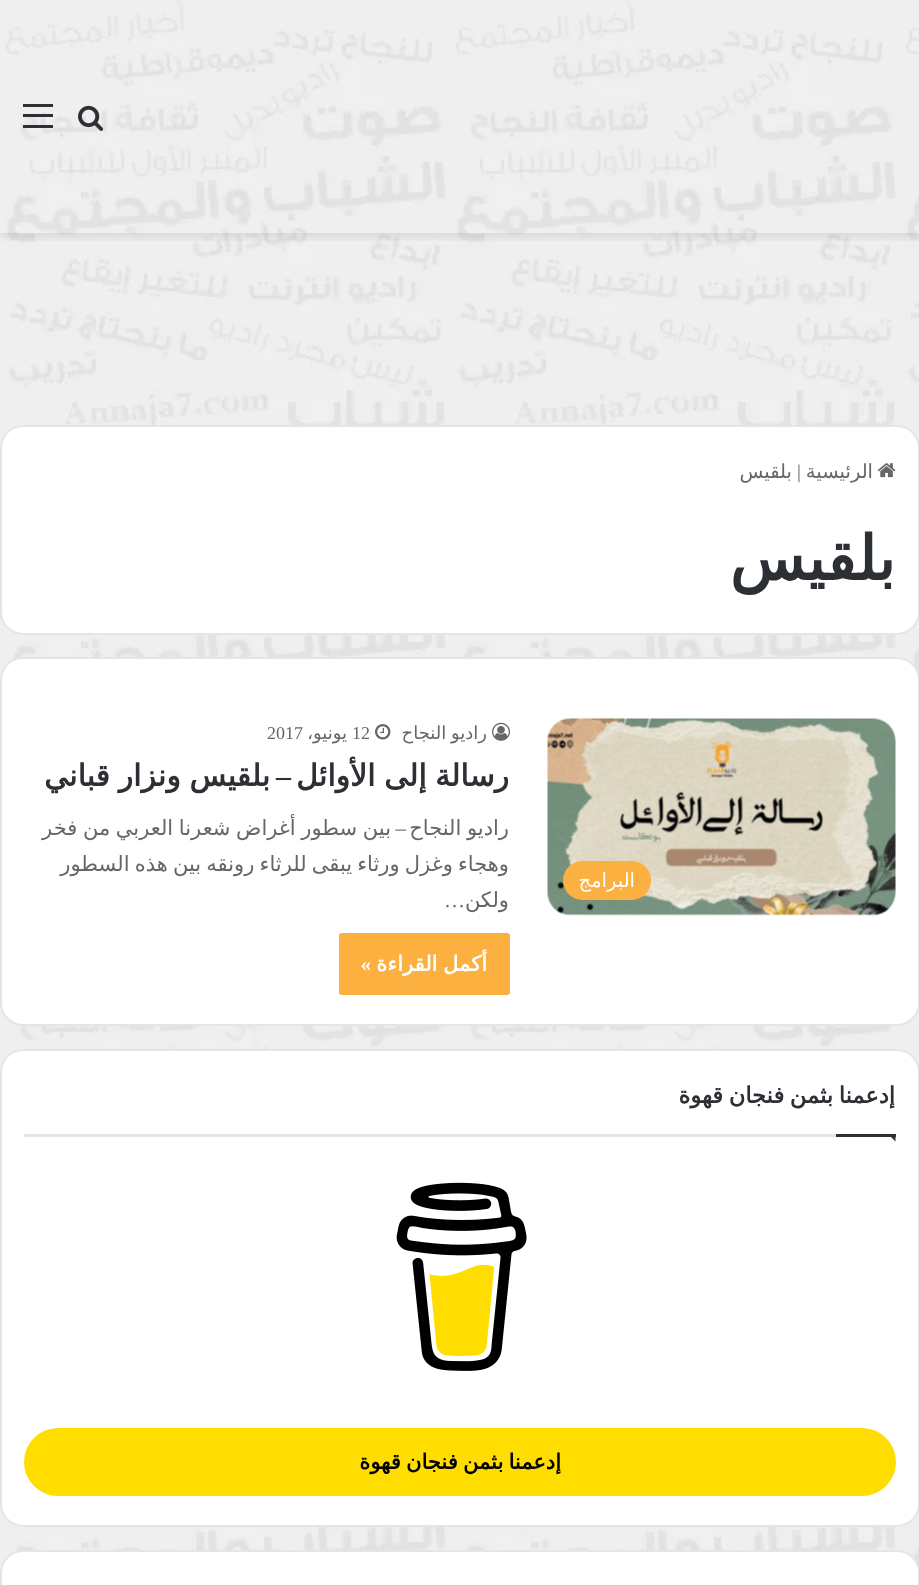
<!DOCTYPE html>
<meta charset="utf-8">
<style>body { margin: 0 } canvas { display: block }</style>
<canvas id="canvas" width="919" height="1585"></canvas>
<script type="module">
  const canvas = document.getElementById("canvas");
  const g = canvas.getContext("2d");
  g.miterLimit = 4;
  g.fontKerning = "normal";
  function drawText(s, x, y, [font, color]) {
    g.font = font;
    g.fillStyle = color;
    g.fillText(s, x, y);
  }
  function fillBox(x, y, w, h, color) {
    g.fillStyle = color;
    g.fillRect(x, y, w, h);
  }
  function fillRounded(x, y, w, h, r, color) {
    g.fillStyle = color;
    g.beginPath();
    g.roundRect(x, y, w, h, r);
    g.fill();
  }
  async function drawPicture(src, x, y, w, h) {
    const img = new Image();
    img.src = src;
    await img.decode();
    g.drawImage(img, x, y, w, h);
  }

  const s1 = ["19.5px DejaVu Sans", "#666666"];
  const s2 = ["19.5px Liberation Serif", "#666666"];
  const s3 = ["bold 61.5px DejaVu Sans", "#2C2F34"];
  const s4 = ["19.5px DejaVu Sans", "#FFFFFF"];
  const s5 = ["18px DejaVu Sans", "#666666"];
  const s6 = ["18px Liberation Serif", "#666666"];
  const s7 = ["bold 30px DejaVu Sans", "#2C2F34"];
  const s8 = ["bold 30px Liberation Serif", "#2C2F34"];
  const s9 = ["21px DejaVu Sans", "#666666"];
  const s10 = ["21px Liberation Serif", "#666666"];
  const s11 = ["bold 21px DejaVu Sans", "#FFFFFF"];
  const s12 = ["bold 21px Liberation Serif", "#FFFFFF"];
  const s13 = ["bold 22.5px DejaVu Sans", "#2C2F34"];
  const s14 = ["bold 21px DejaVu Sans", "#000000"];

  fillBox(0, 0, 919, 1585, "#FFFFFF");
  await drawPicture("pic1.png", 0, 0, 919, 1573);
  g.save();
  g.beginPath();
  g.rect(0, 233, 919, 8);
  g.clip();
  g.fillStyle = "rgba(0, 0, 0, 0.1)";
  g.filter = "blur(5px)";
  g.beginPath();
  g.rect(0, 5, 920, 232);
  g.fill();
  g.filter = "none";
  g.restore();
  await drawPicture("pic2.png", 0, 232, 919, 1);
  await drawPicture("pic3.png", 78, 105, 25, 26);
  fillBox(23, 114, 30, 3, "#2C2F34");
  fillBox(23, 104, 30, 3, "#2C2F34");
  fillBox(23, 125, 30, 3, "#2C2F34");
  fillRounded(0, 425, 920, 210, 23, "#FFFFFF");
  g.beginPath();
  g.roundRect(1, 426, 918, 208, 22);
  g.strokeStyle = "rgba(0, 0, 0, 0.1)";
  g.lineWidth = 2;
  g.stroke();
  await drawPicture("pic4.png", 877, 463, 19, 15);
  g.direction = "rtl";
  drawText("الرئيسية", 873, 478, s1);
  g.direction = "ltr";
  drawText("|", 797, 478, s2);
  g.direction = "rtl";
  drawText("بلقيس", 792, 478, s1);
  drawText("بلقيس", 895, 580, s3);
  fillRounded(0, 657, 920, 369, 23, "#FFFFFF");
  g.beginPath();
  g.roundRect(1, 658, 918, 367, 22);
  g.stroke();
  await drawPicture("pic5.png", 547, 718, 349, 198);
  fillRounded(563, 861, 88, 39, 19.5, "#FCB040");
  drawText("البرامج", 635, 887, s4);
  await drawPicture("pic6.png", 492, 722, 18, 19);
  g.wordSpacing = "-1px";
  drawText("راديو النجاح", 487, 739, s5);
  await drawPicture("pic7.png", 375, 724, 16, 16);
  g.wordSpacing = "0px";
  g.direction = "ltr";
  drawText("12", 352, 739, s6);
  g.direction = "rtl";
  drawText("يونيو،", 347, 739, s5);
  g.direction = "ltr";
  drawText("2017", 267, 739, s6);
  g.wordSpacing = "-1px";
  g.direction = "rtl";
  drawText("رسالة إلى الأوائل", 509, 786, s7);
  g.wordSpacing = "0px";
  drawText("–", 291, 786, s8);
  g.wordSpacing = "-1px";
  drawText("بلقيس ونزار قباني", 270, 786, s7);
  drawText("راديو النجاح", 509, 835, s9);
  drawText("بين سطور أغراض شعرنا العربي من فخر", 391, 835, s9);
  g.wordSpacing = "0px";
  drawText("–", 406, 835, s10);
  g.wordSpacing = "-1.5px";
  drawText("وهجاء وغزل ورثاء يبقى للرثاء رونقه بين هذه السطور", 509, 871, s9);
  g.wordSpacing = "0px";
  drawText("ولكن", 509, 907, s9);
  drawText("…", 465, 907, s10);
  fillRounded(339, 933, 171, 62, 3, "#FCB040");
  g.wordSpacing = "-1px";
  drawText("أكمل القراءة", 487, 971, s11);
  g.wordSpacing = "0px";
  drawText("»", 371, 971, s12);
  fillRounded(0, 1049, 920, 478, 23, "#FFFFFF");
  g.beginPath();
  g.roundRect(1, 1050, 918, 476, 22);
  g.stroke();
  fillBox(24, 1134, 812, 3, "#E6E6E6");
  g.wordSpacing = "-1.5px";
  drawText("إدعمنا بثمن فنجان قهوة", 895, 1103, s13);
  g.beginPath();
  g.moveTo(888, 1134);
  g.lineTo(895.5, 1134);
  g.lineTo(895.5, 1141.5);
  g.closePath();
  g.fill();
  fillBox(836, 1134, 60, 3, "#2C2F34");
  await drawPicture("pic8.png", 396, 1182, 131, 189);
  fillRounded(24, 1428, 872, 68, 34, "#FFDD00");
  drawText("إدعمنا بثمن فنجان قهوة", 561, 1469, s14);
  fillRounded(0, 1550, 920, 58, 23, "#FFFFFF");
  g.beginPath();
  g.roundRect(1, 1551, 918, 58, 22);
  g.stroke();
</script>
